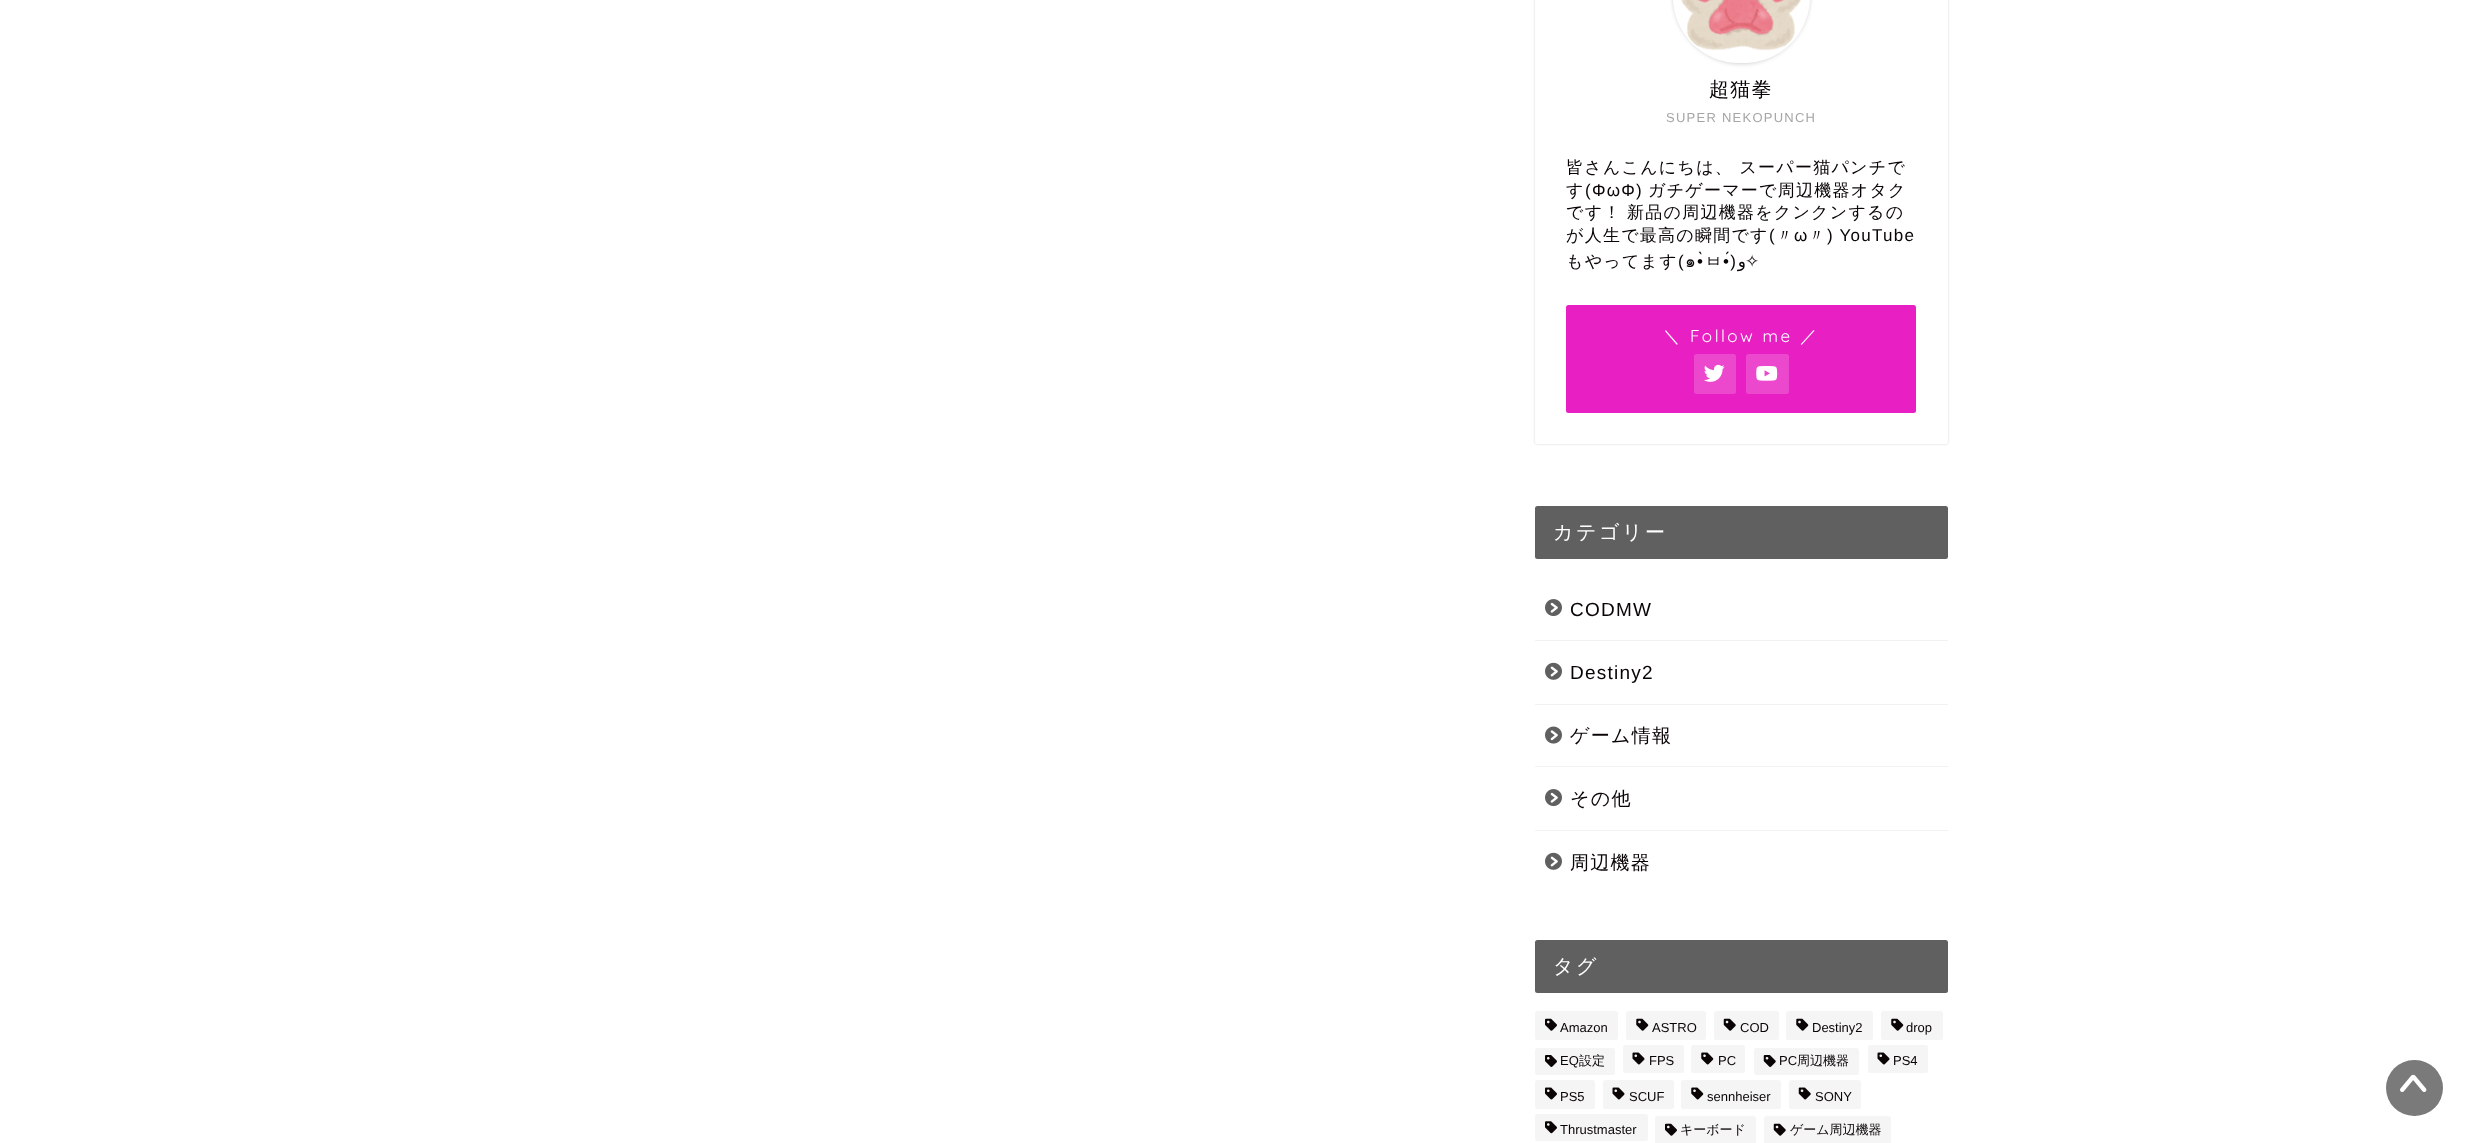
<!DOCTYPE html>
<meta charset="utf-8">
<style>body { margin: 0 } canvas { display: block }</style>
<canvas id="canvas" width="2470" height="1143"></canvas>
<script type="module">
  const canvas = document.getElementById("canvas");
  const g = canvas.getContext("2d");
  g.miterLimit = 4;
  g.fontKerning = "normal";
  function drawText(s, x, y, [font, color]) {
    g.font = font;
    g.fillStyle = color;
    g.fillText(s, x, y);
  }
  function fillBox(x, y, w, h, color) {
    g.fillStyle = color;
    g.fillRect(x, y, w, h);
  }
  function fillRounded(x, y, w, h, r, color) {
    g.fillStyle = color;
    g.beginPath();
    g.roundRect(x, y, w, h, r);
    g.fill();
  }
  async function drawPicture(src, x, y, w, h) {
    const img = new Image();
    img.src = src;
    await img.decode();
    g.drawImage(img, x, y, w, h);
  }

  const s1 = ["500 20px WenQuanYi Zen Hei", "#0A0404"];
  const s2 = ["13px Liberation Sans", "#A6A6A6"];
  const s3 = ["500 17px WenQuanYi Zen Hei", "#0A0404"];
  const s4 = ["17px Liberation Sans", "#0A0404"];
  const s5 = ["17px Loma", "#0A0404"];
  const s6 = ["17px DejaVu Sans", "#0A0404"];
  const s7 = ["500 17px WenQuanYi Zen Hei", "#FFFFFF"];
  const s8 = ["300 17px Quicksand", "#FFFFFF"];
  const s9 = ["500 20px WenQuanYi Zen Hei", "#FFFFFF"];
  const s10 = ["19px Liberation Sans", "#0A0404"];
  const s11 = ["500 19px WenQuanYi Zen Hei", "#0A0404"];
  const s12 = ["13px Liberation Sans", "#0A0404"];
  const s13 = ["500 13px WenQuanYi Zen Hei", "#0A0404"];

  fillBox(0, 0, 2470, 1143, "#FFFFFF");
  g.fillStyle = "rgba(0, 0, 0, 0.18)";
  g.filter = "blur(1px)";
  g.beginPath();
  g.roundRect(1535, -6, 413, 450, 2.5);
  g.fill();
  g.filter = "none";
  fillRounded(1535, -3, 413, 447, 2.5, "#FFFFFF");
  g.fillStyle = "rgba(0, 0, 0, 0.18)";
  g.filter = "blur(2px)";
  g.beginPath();
  g.roundRect(1673, -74, 137, 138, 68.5);
  g.fill();
  g.filter = "none";
  fillRounded(1673, -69, 137, 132, 68.5, "#FFFFFF");
  await drawPicture("pic1.png", 1681, 0, 120, 51);
  g.letterSpacing = "1.25px";
  drawText("超猫拳", 1709, 96, s1);
  drawText("SUPER NEKOPUNCH", 1666, 122, s2);
  drawText("皆さんこんにちは、 スーパー猫パンチで", 1566, 173, s3);
  drawText("す", 1566, 196, s3);
  drawText("(ΦωΦ)", 1585, 196, s4);
  drawText("ガチゲーマーで周辺機器オタク", 1648, 196, s3);
  drawText("です！", 1566, 218, s3);
  drawText("新品の周辺機器をクンクンするの", 1627, 218, s3);
  drawText("が人生で最高の瞬間です", 1566, 241, s3);
  drawText("(", 1769, 241, s4);
  drawText("〃", 1776, 241, s3);
  drawText("ω", 1794, 241, s4);
  drawText("〃", 1808, 241, s3);
  drawText(") YouTube", 1827, 241, s4);
  drawText("もやってます", 1566, 267, s3);
  drawText("(", 1678, 267, s4);
  drawText("๑", 1685, 267, s5);
  drawText("•̀", 1697, 267, s4);
  drawText("ㅂ", 1705, 267, s3);
  drawText("•́)", 1723, 267, s4);
  g.direction = "rtl";
  drawText("و", 1746, 267, s6);
  g.direction = "ltr";
  drawText("✧", 1745, 267, s6);
  fillRounded(1566, 305, 350, 108, 2.5, "#E820C3");
  g.letterSpacing = "2.5px";
  drawText("＼", 1663, 342, s7);
  drawText("Follow me", 1690, 342, s8);
  drawText("／", 1800, 342, s7);
  fillRounded(1694, 354, 42, 40, 2.5, "#EC48CE");
  await drawPicture("pic2.png", 1704, 364, 21, 18);
  fillRounded(1746, 354, 43, 40, 2.5, "#EC48CE");
  await drawPicture("pic3.png", 1756, 366, 22, 15);
  fillRounded(1535, 506, 413, 53, 2.5, "#606060");
  drawText("カテゴリー", 1553, 539, s9);
  fillBox(1535, 640, 413, 1, "#F2F2F2");
  await drawPicture("pic4.png", 1545, 599, 17, 18);
  g.letterSpacing = "1.25px";
  drawText("CODMW", 1570, 616, s10);
  fillBox(1535, 704, 413, 1, "#F2F2F2");
  await drawPicture("pic5.png", 1545, 662, 17, 18);
  drawText("Destiny2", 1570, 679, s10);
  fillBox(1535, 766, 413, 1, "#F2F2F2");
  await drawPicture("pic6.png", 1545, 726, 17, 18);
  drawText("ゲーム情報", 1570, 742, s11);
  fillBox(1535, 830, 413, 1, "#F2F2F2");
  await drawPicture("pic4.png", 1545, 789, 17, 18);
  drawText("その他", 1570, 805, s11);
  await drawPicture("pic5.png", 1545, 852, 17, 18);
  drawText("周辺機器", 1570, 869, s11);
  fillRounded(1535, 940, 413, 53, 2.5, "#606060");
  g.letterSpacing = "2.5px";
  drawText("タグ", 1553, 973, s9);
  fillRounded(1535, 1011, 83, 29, 2.5, "#F5F5F5");
  await drawPicture("pic7.png", 1545, 1018, 12, 13);
  g.letterSpacing = "0px";
  drawText("Amazon", 1560, 1032, s12);
  fillRounded(1626, 1011, 80, 29, 2.5, "#F5F5F5");
  await drawPicture("pic8.png", 1636, 1018, 13, 13);
  drawText("ASTRO", 1652, 1032, s12);
  fillRounded(1714, 1011, 65, 29, 2.5, "#F5F5F5");
  await drawPicture("pic9.png", 1723, 1018, 13, 13);
  drawText("COD", 1740, 1032, s12);
  fillRounded(1786, 1011, 87, 29, 2.5, "#F5F5F5");
  await drawPicture("pic8.png", 1796, 1018, 13, 13);
  drawText("Destiny2", 1812, 1032, s12);
  fillRounded(1881, 1011, 62, 29, 2.5, "#F5F5F5");
  await drawPicture("pic8.png", 1891, 1018, 13, 13);
  drawText("drop", 1906, 1032, s12);
  fillRounded(1535, 1048, 80, 27, 2.5, "#F5F5F5");
  await drawPicture("pic10.png", 1545, 1055, 12, 12);
  drawText("EQ", 1560, 1065, s12);
  drawText("設定", 1579, 1065, s13);
  fillRounded(1623, 1045, 61, 28, 2.5, "#F5F5F5");
  await drawPicture("pic11.png", 1632, 1052, 13, 13);
  drawText("FPS", 1649, 1065, s12);
  fillRounded(1691, 1045, 54, 28, 2.5, "#F5F5F5");
  await drawPicture("pic12.png", 1701, 1052, 13, 13);
  drawText("PC", 1718, 1065, s12);
  fillRounded(1754, 1048, 105, 27, 2.5, "#F5F5F5");
  await drawPicture("pic13.png", 1763, 1055, 13, 12);
  drawText("PC", 1779, 1065, s12);
  drawText("周辺機器", 1797, 1065, s13);
  fillRounded(1868, 1045, 60, 28, 2.5, "#F5F5F5");
  await drawPicture("pic11.png", 1877, 1052, 13, 13);
  drawText("PS4", 1893, 1065, s12);
  fillRounded(1535, 1080, 60, 29, 2.5, "#F5F5F5");
  await drawPicture("pic14.png", 1545, 1087, 12, 13);
  drawText("PS5", 1560, 1101, s12);
  fillRounded(1603, 1080, 71, 29, 2.5, "#F5F5F5");
  await drawPicture("pic11.png", 1612, 1087, 13, 13);
  drawText("SCUF", 1629, 1101, s12);
  fillRounded(1681, 1080, 100, 29, 2.5, "#F5F5F5");
  await drawPicture("pic12.png", 1691, 1087, 13, 13);
  drawText("sennheiser", 1707, 1101, s12);
  fillRounded(1789, 1080, 72, 29, 2.5, "#F5F5F5");
  await drawPicture("pic15.png", 1798, 1087, 13, 13);
  drawText("SONY", 1815, 1101, s12);
  fillRounded(1535, 1114, 113, 27, 2.5, "#F5F5F5");
  await drawPicture("pic16.png", 1545, 1121, 12, 13);
  drawText("Thrustmaster", 1560, 1134, s12);
  fillRounded(1655, 1116, 101, 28, 2.5, "#F5F5F5");
  await drawPicture("pic7.png", 1665, 1123, 12, 13);
  drawText("キーボード", 1680, 1134, s13);
  fillRounded(1764, 1116, 127, 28, 2.5, "#F5F5F5");
  await drawPicture("pic9.png", 1773, 1123, 13, 13);
  drawText("ゲーム周辺機器", 1790, 1134, s13);
  fillRounded(2386, 1060, 57, 56, 28, "#7A7A7A");
  await drawPicture("pic17.png", 2400, 1074, 27, 18);
</script>
